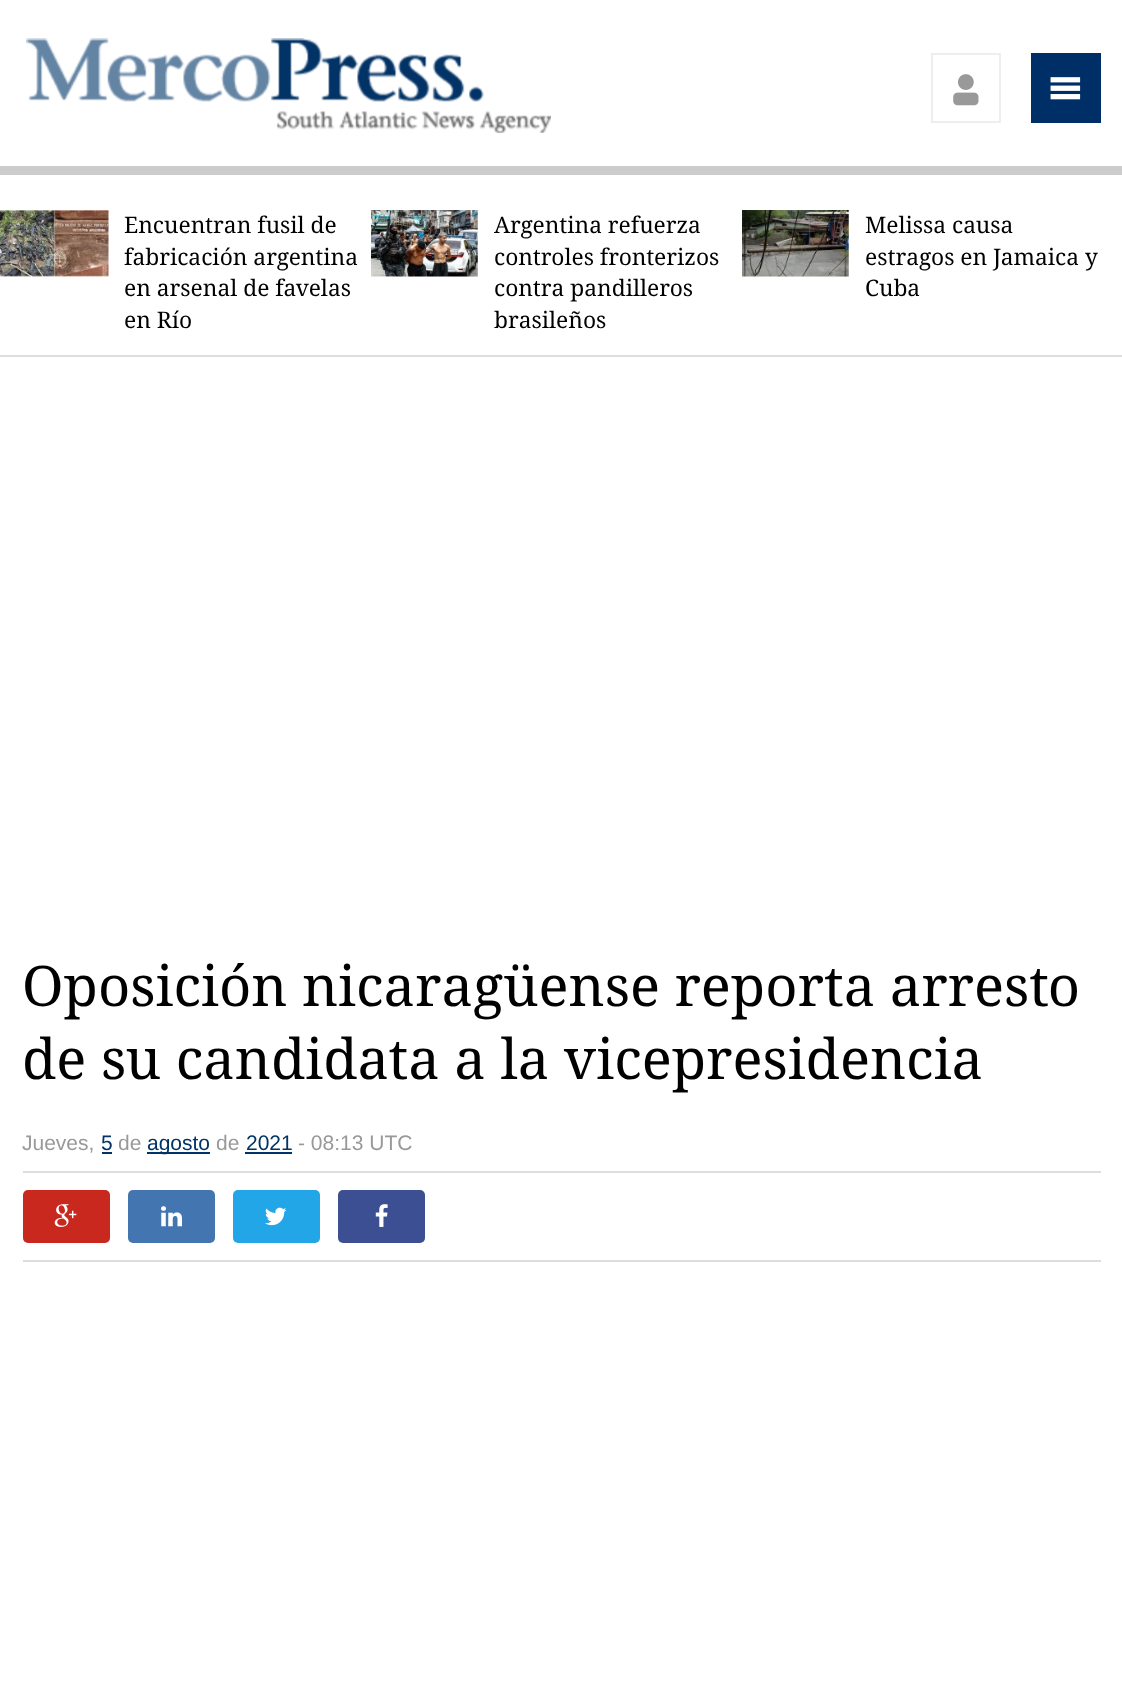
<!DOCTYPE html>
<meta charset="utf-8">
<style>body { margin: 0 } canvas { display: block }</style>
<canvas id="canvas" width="1122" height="1700"></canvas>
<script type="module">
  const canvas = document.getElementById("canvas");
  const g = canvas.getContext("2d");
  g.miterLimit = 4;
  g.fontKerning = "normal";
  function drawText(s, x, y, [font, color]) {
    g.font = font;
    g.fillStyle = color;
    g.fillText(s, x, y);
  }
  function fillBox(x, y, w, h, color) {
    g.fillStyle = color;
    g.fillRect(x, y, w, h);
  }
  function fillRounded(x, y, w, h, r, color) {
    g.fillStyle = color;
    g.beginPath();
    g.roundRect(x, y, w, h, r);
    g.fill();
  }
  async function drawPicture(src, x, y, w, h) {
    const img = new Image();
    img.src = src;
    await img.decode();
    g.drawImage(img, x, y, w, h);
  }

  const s1 = ["22.75px Droid Serif", "#000000"];
  const s2 = ["56px Droid Serif", "#000000"];
  const s3 = ["21px Liberation Sans", "#999999"];
  const s4 = ["21px Liberation Sans", "#003366"];

  fillBox(0, 0, 1122, 1700, "#FFFFFF");
  fillBox(0, 166, 1122, 9, "#CCCCCC");
  await drawPicture("pic1.png", 26, 38, 525, 95);
  g.strokeStyle = "#EEEEEE";
  g.lineWidth = 2;
  g.strokeRect(932, 54, 68, 68);
  await drawPicture("pic2.png", 953, 74, 26, 32);
  fillBox(1031, 53, 70, 70, "#002F67");
  await drawPicture("pic3.png", 1050, 77, 31, 23);
  fillBox(0, 355, 1122, 2, "#DDDDDD");
  await drawPicture("pic4.png", 0, 210, 109, 67);
  drawText("Encuentran fusil de", 124, 233, s1);
  drawText("fabricación argentina", 124, 265, s1);
  drawText("en arsenal de favelas", 124, 296, s1);
  drawText("en Río", 124, 328, s1);
  await drawPicture("pic5.png", 371, 210, 107, 67);
  drawText("Argentina refuerza", 494, 233, s1);
  drawText("controles fronterizos", 494, 265, s1);
  drawText("contra pandilleros", 494, 296, s1);
  drawText("brasileños", 494, 328, s1);
  await drawPicture("pic6.png", 742, 210, 107, 67);
  drawText("Melissa causa", 865, 233, s1);
  drawText("estragos en Jamaica y", 865, 265, s1);
  drawText("Cuba", 865, 296, s1);
  drawText("Oposición nicaragüense reporta arresto", 22, 1006, s2);
  drawText("de su candidata a la vicepresidencia", 22, 1079, s2);
  fillBox(23, 1171, 1078, 2, "#DDDDDD");
  drawText("Jueves,", 22, 1150, s3);
  drawText("5", 101, 1150, s4);
  fillBox(102, 1152, 10, 2, "#003366");
  drawText("de", 118, 1150, s3);
  fillBox(147, 1152, 63, 2, "#003366");
  drawText("agosto", 147, 1150, s4);
  drawText("de", 216, 1150, s3);
  drawText("2021", 246, 1150, s4);
  fillBox(245, 1152, 47, 2, "#003366");
  drawText("- 08:13 UTC", 298, 1150, s3);
  fillBox(23, 1260, 1078, 2, "#DDDDDD");
  fillRounded(23, 1190, 87, 53, 5, "#C8281E");
  await drawPicture("pic7.png", 54, 1204, 23, 23);
  fillRounded(128, 1190, 87, 53, 5, "#4376B1");
  await drawPicture("pic8.png", 161, 1206, 21, 21);
  fillRounded(233, 1190, 87, 53, 5, "#22A6E7");
  await drawPicture("pic9.png", 265, 1207, 22, 19);
  fillRounded(338, 1190, 87, 53, 5, "#3B4F92");
  await drawPicture("pic10.png", 375, 1204, 13, 23);
</script>
